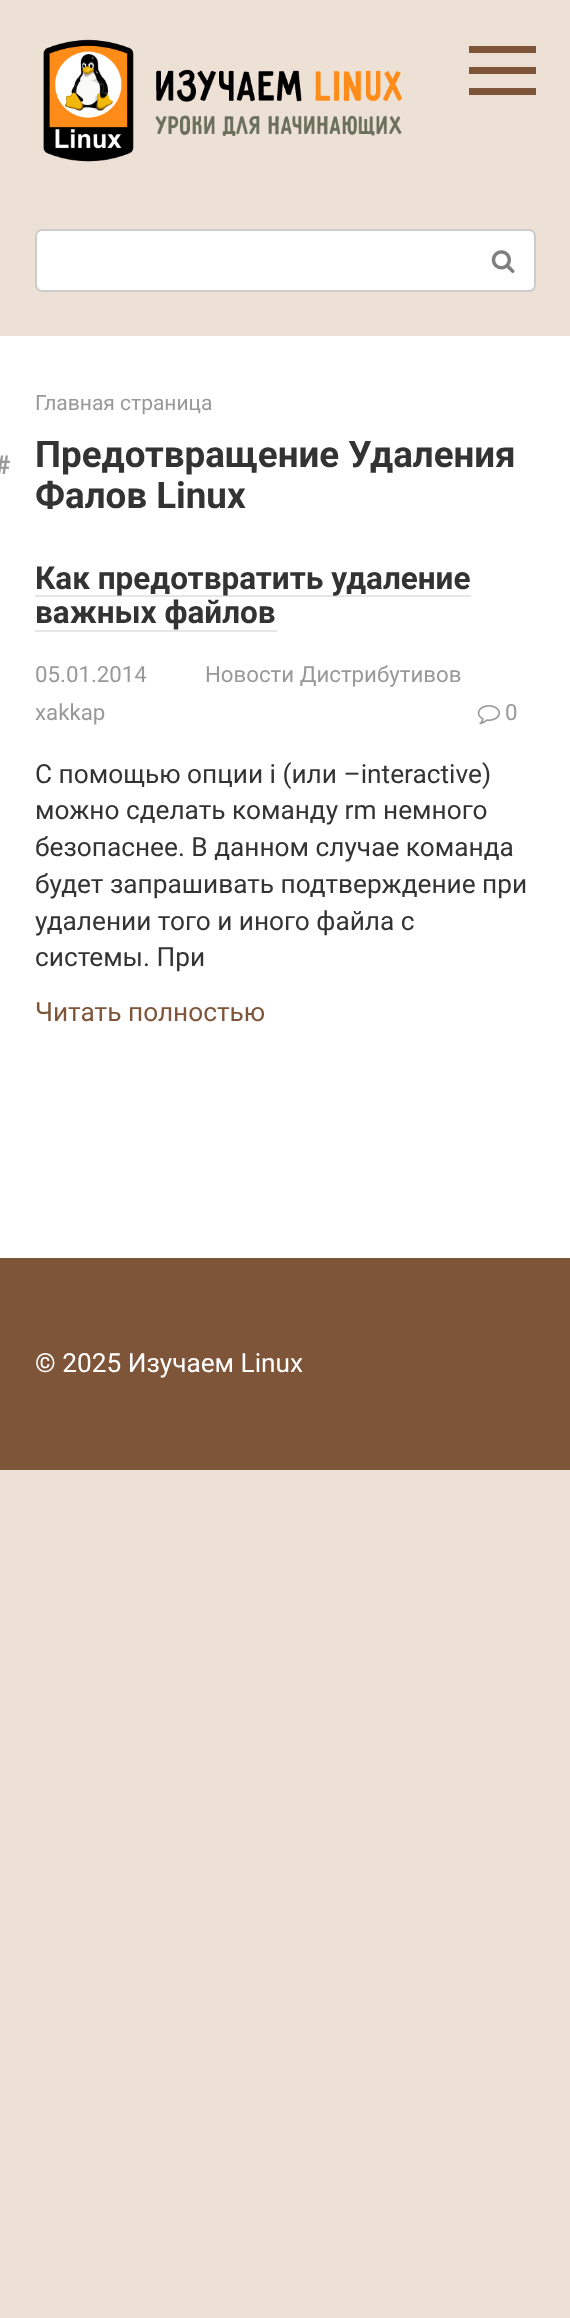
<!DOCTYPE html>
<meta charset="utf-8">
<style>body { margin: 0 } canvas { display: block }</style>
<canvas id="canvas" width="570" height="2318"></canvas>
<script type="module">
  const canvas = document.getElementById("canvas");
  const g = canvas.getContext("2d");
  g.miterLimit = 4;
  g.fontKerning = "normal";
  function drawText(s, x, y, [font, color]) {
    g.font = font;
    g.fillStyle = color;
    g.fillText(s, x, y);
  }
  function fillBox(x, y, w, h, color) {
    g.fillStyle = color;
    g.fillRect(x, y, w, h);
  }
  async function drawPicture(src, x, y, w, h) {
    const img = new Image();
    img.src = src;
    await img.decode();
    g.drawImage(img, x, y, w, h);
  }

  const s1 = ["21px Roboto", "#999999"];
  const s2 = ["bold 26px Roboto", "#999999"];
  const s3 = ["bold 36.75px Roboto", "#333333"];
  const s4 = ["bold 31.5px Roboto", "#333333"];
  const s5 = ["22.25px Roboto", "#999999"];
  const s6 = ["26.25px Roboto", "#333333"];
  const s7 = ["26.25px Roboto", "#7F5539"];
  const s8 = ["26.25px Roboto", "#FFFFFF"];

  fillBox(0, 0, 570, 2318, "#EDE0D4");
  await drawPicture("pic1.png", 43, 39, 359, 123);
  fillBox(469, 46, 67, 7, "#7F5539");
  fillBox(469, 88, 67, 7, "#7F5539");
  fillBox(469, 67, 67, 7, "#7F5539");
  g.fillStyle = "#FFFFFF";
  g.beginPath();
  g.roundRect(36, 230, 499, 61, 6);
  g.fill();
  g.strokeStyle = "#CCCCCC";
  g.lineWidth = 2;
  g.stroke();
  await drawPicture("pic2.png", 491, 250, 24, 23);
  fillBox(0, 336, 570, 922, "#FFFFFF");
  drawText("Главная страница", 35, 410, s1);
  drawText("#", -5, 474, s2);
  drawText("Предотвращение Удаления", 35, 467, s3);
  drawText("Фалов Linux", 35, 508, s3);
  fillBox(35, 595, 436, 2, "#E6E6E6");
  drawText("Как предотвратить удаление", 35, 589, s4);
  drawText("важных файлов", 35, 623, s4);
  fillBox(35, 630, 242, 2, "#E6E6E6");
  drawText("05.01.2014", 35, 682, s5);
  drawText("Новости Дистрибутивов", 205, 682, s5);
  drawText("xakkap", 35, 720, s5);
  await drawPicture("pic3.png", 477, 705, 23, 20);
  drawText("0", 505, 720, s5);
  drawText("С помощью опции i (или –interactive)", 35, 783, s6);
  drawText("можно сделать команду rm немного", 35, 819, s6);
  drawText("безопаснее. В данном случае команда", 35, 856, s6);
  drawText("будет запрашивать подтверждение при", 35, 893, s6);
  drawText("удалении того и иного файла с", 35, 930, s6);
  drawText("системы. При", 35, 966, s6);
  drawText("Читать полностью", 35, 1021, s7);
  fillBox(0, 1258, 570, 212, "#7F5539");
  drawText("© 2025 Изучаем Linux", 35, 1372, s8);
</script>
